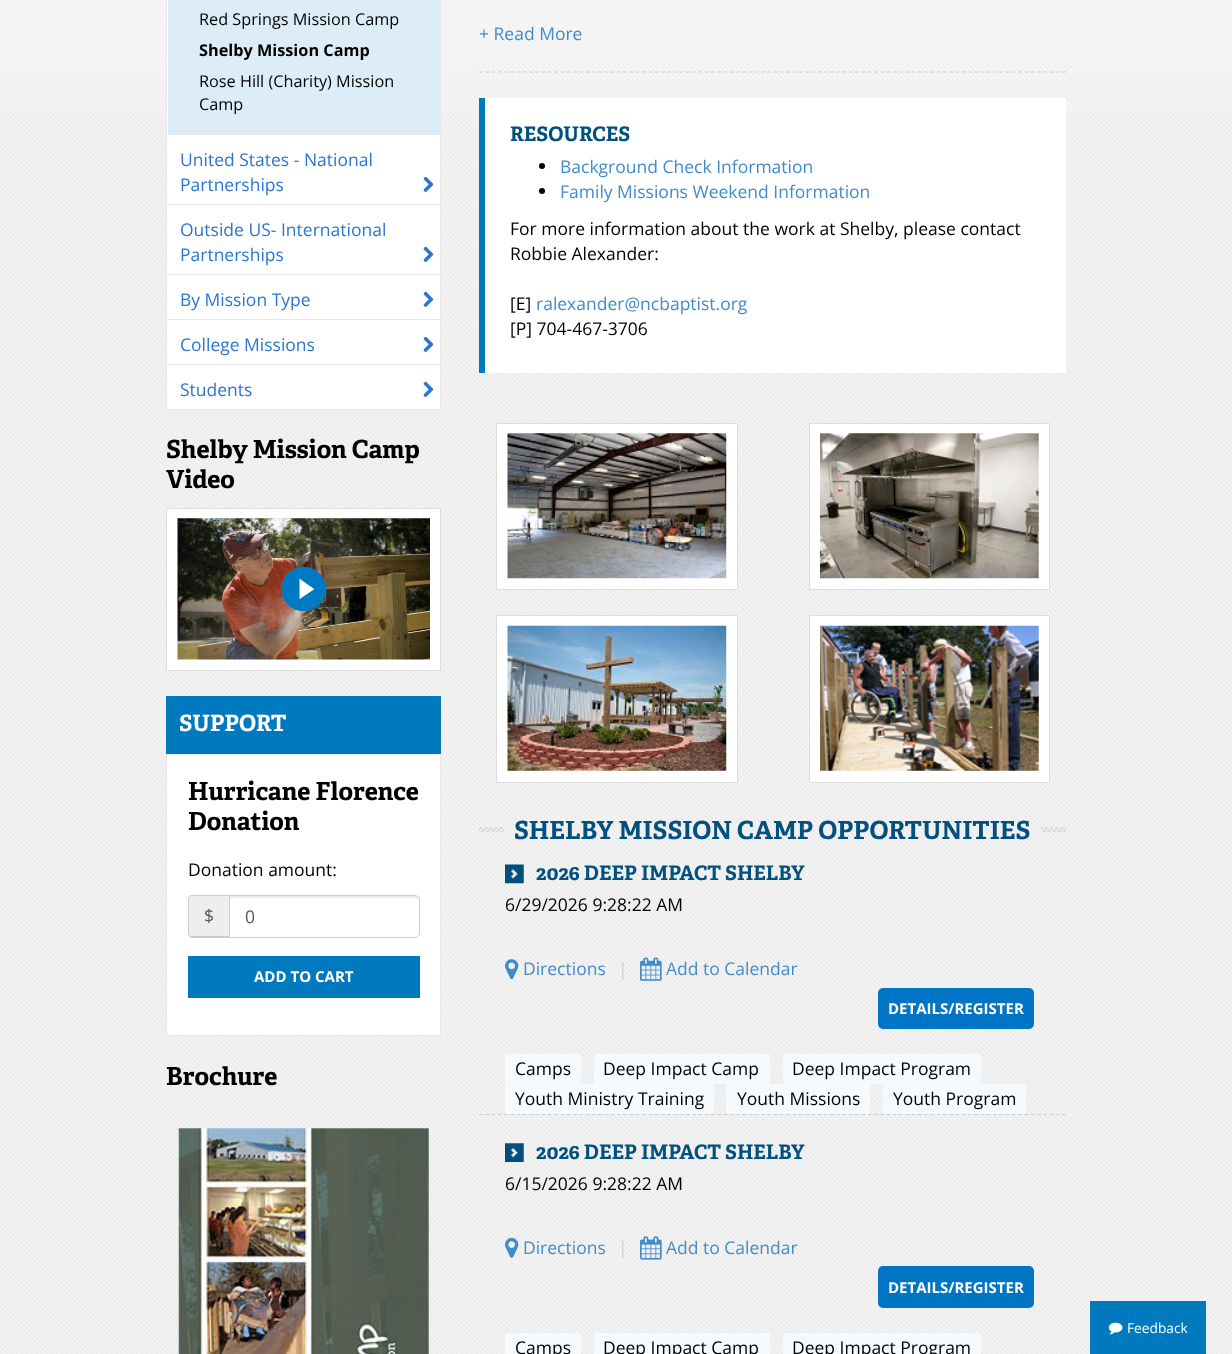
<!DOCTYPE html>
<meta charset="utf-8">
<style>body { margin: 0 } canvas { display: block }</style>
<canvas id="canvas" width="1232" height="1354"></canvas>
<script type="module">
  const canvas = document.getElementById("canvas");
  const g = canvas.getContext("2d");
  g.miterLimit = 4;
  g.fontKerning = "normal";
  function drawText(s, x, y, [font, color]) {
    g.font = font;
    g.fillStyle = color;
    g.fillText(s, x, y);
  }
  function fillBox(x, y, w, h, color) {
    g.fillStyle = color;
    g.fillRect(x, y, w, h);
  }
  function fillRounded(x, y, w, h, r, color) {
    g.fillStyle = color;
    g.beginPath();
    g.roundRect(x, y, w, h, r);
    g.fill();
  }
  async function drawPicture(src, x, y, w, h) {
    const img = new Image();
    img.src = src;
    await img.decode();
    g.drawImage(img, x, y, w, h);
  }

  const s1 = ["16.25px Open Sans", "#000000"];
  const s2 = ["bold 16.25px Open Sans", "#000000"];
  const s3 = ["17.5px Open Sans", "#2C76CF"];
  const s4 = ["bold 25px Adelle", "#000000"];
  const s5 = ["bold 22.5px Adelle", "#FFFFFF"];
  const s6 = ["17.5px Open Sans", "#000000"];
  const s7 = ["17.5px Open Sans", "#555555"];
  const s8 = ["bold 15px Open Sans", "#FFFFFF"];
  const s9 = ["17.5px Open Sans", "#428BCA"];
  const s10 = ["bold 20px Adelle", "#01507E"];
  const s11 = ["bold 25px Adelle", "#01507E"];
  const s12 = ["17.5px Open Sans", "#CCCCCC"];
  const s13 = ["13.75px Open Sans", "#FFFFFF"];

  fillBox(0, 0, 1232, 1354, "#FFFFFF");
  await drawPicture("pic1.png", 0, 0, 1232, 1354);
  await drawPicture("pic2.png", 0, 0, 1232, 113);
  g.beginPath();
  g.rect(166.5, -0.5, 274, 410);
  g.fill();
  g.strokeStyle = "#E8E8E8";
  g.stroke();
  fillBox(168, 0, 272, 134, "#DDEDF7");
  fillBox(168, 134, 272, 1, "#EAEAEA");
  drawText("Red Springs Mission Camp", 199, 25, s1);
  drawText("Shelby Mission Camp", 199, 56, s2);
  drawText("Rose Hill (Charity) Mission", 199, 87, s1);
  drawText("Camp", 199, 110, s1);
  fillBox(168, 204, 272, 1, "#EAEAEA");
  drawText("United States - National", 180, 166, s3);
  drawText("Partnerships", 180, 191, s3);
  await drawPicture("pic3.png", 423, 176, 11, 16);
  fillBox(168, 274, 272, 1, "#EAEAEA");
  drawText("Outside US- International", 180, 236, s3);
  drawText("Partnerships", 180, 261, s3);
  await drawPicture("pic3.png", 423, 246, 11, 16);
  fillBox(168, 319, 272, 1, "#EAEAEA");
  drawText("By Mission Type", 180, 306, s3);
  await drawPicture("pic3.png", 423, 291, 11, 16);
  fillBox(168, 364, 272, 1, "#EAEAEA");
  drawText("College Missions", 180, 351, s3);
  await drawPicture("pic3.png", 423, 336, 11, 16);
  drawText("Students", 180, 396, s3);
  await drawPicture("pic3.png", 423, 381, 11, 16);
  drawText("Shelby Mission Camp", 166, 458, s4);
  drawText("Video", 166, 488, s4);
  g.fillStyle = "#FFFFFF";
  g.beginPath();
  g.rect(166.5, 508.5, 274, 162);
  g.fill();
  g.strokeStyle = "#DDDDDD";
  g.stroke();
  await drawPicture("pic4.png", 177, 518, 253, 142);
  fillBox(166, 696, 275, 58, "#0079BF");
  drawText("SUPPORT", 179, 731, s5);
  g.beginPath();
  g.rect(166.5, 754.5, 274, 281);
  g.fill();
  g.strokeStyle = "#E8E8E8";
  g.stroke();
  drawText("Hurricane Florence", 188, 800, s4);
  drawText("Donation", 188, 830, s4);
  drawText("Donation amount:", 188, 876, s6);
  g.fillStyle = "#EEEEEE";
  g.beginPath();
  g.roundRect(188, 895, 41, 43, [5, 0, 0, 5]);
  g.fill();
  g.fillStyle = "#CCCCCC";
  g.beginPath();
  g.moveTo(192, 895);
  g.lineTo(229, 895);
  g.lineTo(229, 938);
  g.lineTo(192, 938);
  g.bezierCurveTo(190, 938, 188, 935, 188, 932);
  g.lineTo(188, 900);
  g.bezierCurveTo(188, 897, 190, 895, 192, 895);
  g.closePath();
  g.moveTo(192, 896);
  g.lineTo(229, 896);
  g.lineTo(229, 936);
  g.lineTo(192, 936);
  g.bezierCurveTo(190, 936, 189, 935, 189, 932);
  g.lineTo(189, 900);
  g.bezierCurveTo(189, 898, 190, 896, 192, 896);
  g.closePath();
  g.fill("evenodd");
  drawText("$", 204, 922, s7);
  g.fillStyle = "#ECECEC";
  g.beginPath();
  g.moveTo(230, 898);
  g.lineTo(415, 898);
  g.bezierCurveTo(417, 898, 419, 899, 419, 901);
  g.bezierCurveTo(419, 898, 418, 896, 415, 896);
  g.lineTo(230, 896);
  g.closePath();
  g.fill();
  g.beginPath();
  g.roundRect(229.5, 895.5, 190, 42, [0, 4.5, 4.5, 0]);
  g.strokeStyle = "#CCCCCC";
  g.stroke();
  drawText("0", 245, 923, s7);
  fillBox(188, 956, 232, 42, "#0079BF");
  drawText("ADD TO CART", 254, 982, s8);
  drawText("Brochure", 166, 1085, s4);
  await drawPicture("pic5.png", 178, 1128, 251, 226);
  drawText("+ Read More", 479, 40, s9);
  g.beginPath();
  g.moveTo(479, 72);
  g.lineTo(1066, 72);
  g.lineWidth = 1.2;
  g.setLineDash([3.75, 2.52]);
  g.stroke();
  fillBox(485, 98, 581, 275, "#FFFFFF");
  fillBox(479, 98, 6, 275, "#0079BF");
  drawText("RESOURCES", 510, 141, s10);
  g.fillStyle = "#000000";
  g.beginPath();
  g.arc(542, 166, 3, 0, Math.PI * 2);
  g.fill();
  drawText("Background Check Information", 560, 173, s9);
  g.fillStyle = "#000000";
  g.beginPath();
  g.arc(542, 191, 3, 0, Math.PI * 2);
  g.fill();
  drawText("Family Missions Weekend Information", 560, 198, s9);
  drawText("For more information about the work at Shelby, please contact", 510, 235, s6);
  drawText("Robbie Alexander:", 510, 260, s6);
  drawText("[E]", 510, 310, s6);
  drawText("ralexander@ncbaptist.org", 536, 310, s9);
  drawText("[P] 704-467-3706", 510, 335, s6);
  g.fillStyle = "#FFFFFF";
  g.beginPath();
  g.rect(496.5, 423.5, 241, 166);
  g.fill();
  g.strokeStyle = "#DDDDDD";
  g.lineWidth = 1;
  g.setLineDash([]);
  g.stroke();
  await drawPicture("pic6.png", 507, 433, 220, 146);
  g.beginPath();
  g.rect(809.5, 423.5, 240, 166);
  g.fill();
  g.stroke();
  await drawPicture("pic7.png", 820, 433, 219, 146);
  g.beginPath();
  g.rect(496.5, 615.5, 241, 167);
  g.fill();
  g.stroke();
  await drawPicture("pic8.png", 507, 625, 220, 146);
  g.beginPath();
  g.rect(809.5, 615.5, 240, 167);
  g.fill();
  g.stroke();
  await drawPicture("pic9.png", 820, 625, 219, 146);
  await drawPicture("pic10.png", 478, 827, 26, 5);
  drawText("SHELBY MISSION CAMP OPPORTUNITIES", 514, 839, s11);
  await drawPicture("pic11.png", 1041, 827, 26, 5);
  await drawPicture("pic12.png", 505, 864, 19, 20);
  drawText("2026 DEEP IMPACT SHELBY", 536, 880, s10);
  drawText("6/29/2026 9:28:22 AM", 505, 911, s6);
  await drawPicture("pic13.png", 505, 959, 14, 21);
  drawText("Directions", 523, 975, s9);
  drawText("|", 618, 975, s12);
  await drawPicture("pic14.png", 640, 957, 22, 24);
  drawText("Add to Calendar", 666, 975, s9);
  fillRounded(878, 988, 156, 41, 5, "#0074C5");
  drawText("DETAILS/REGISTER", 888, 1014, s8);
  fillRounded(505, 1054, 76, 30, 2.5, "#F5FAFF");
  drawText("Camps", 515, 1075, s6);
  fillRounded(594, 1054, 176, 30, 2.5, "#F5FAFF");
  drawText("Deep Impact Camp", 603, 1075, s6);
  fillRounded(783, 1054, 198, 30, 2.5, "#F5FAFF");
  drawText("Deep Impact Program", 792, 1075, s6);
  g.beginPath();
  g.moveTo(479, 1114.5);
  g.lineTo(1066, 1114.5);
  g.strokeStyle = "#CCCCCC";
  g.lineWidth = 1.2;
  g.setLineDash([3.75, 2.52]);
  g.stroke();
  fillRounded(505, 1084, 209, 30, 2.5, "#F5FAFF");
  drawText("Youth Ministry Training", 515, 1105, s6);
  fillRounded(726, 1084, 144, 30, 2.5, "#F5FAFF");
  drawText("Youth Missions", 737, 1105, s6);
  fillRounded(883, 1084, 143, 30, 2.5, "#F5FAFF");
  drawText("Youth Program", 893, 1105, s6);
  await drawPicture("pic15.png", 505, 1143, 19, 19);
  drawText("2026 DEEP IMPACT SHELBY", 536, 1159, s10);
  drawText("6/15/2026 9:28:22 AM", 505, 1190, s6);
  await drawPicture("pic16.png", 505, 1237, 14, 21);
  drawText("Directions", 523, 1254, s9);
  drawText("|", 618, 1254, s12);
  await drawPicture("pic17.png", 640, 1236, 22, 24);
  drawText("Add to Calendar", 666, 1254, s9);
  fillRounded(878, 1266, 156, 42, 5, "#0074C5");
  drawText("DETAILS/REGISTER", 888, 1293, s8);
  fillRounded(505, 1333, 76, 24, 2.5, "#F5FAFF");
  drawText("Camps", 515, 1354, s6);
  fillRounded(594, 1333, 176, 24, 2.5, "#F5FAFF");
  drawText("Deep Impact Camp", 603, 1354, s6);
  fillRounded(783, 1333, 198, 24, 2.5, "#F5FAFF");
  drawText("Deep Impact Program", 792, 1354, s6);
  fillBox(1090, 1301, 116, 53, "#0079BF");
  await drawPicture("pic18.png", 1108, 1322, 15, 13);
  drawText("Feedback", 1127, 1333, s13);
</script>
